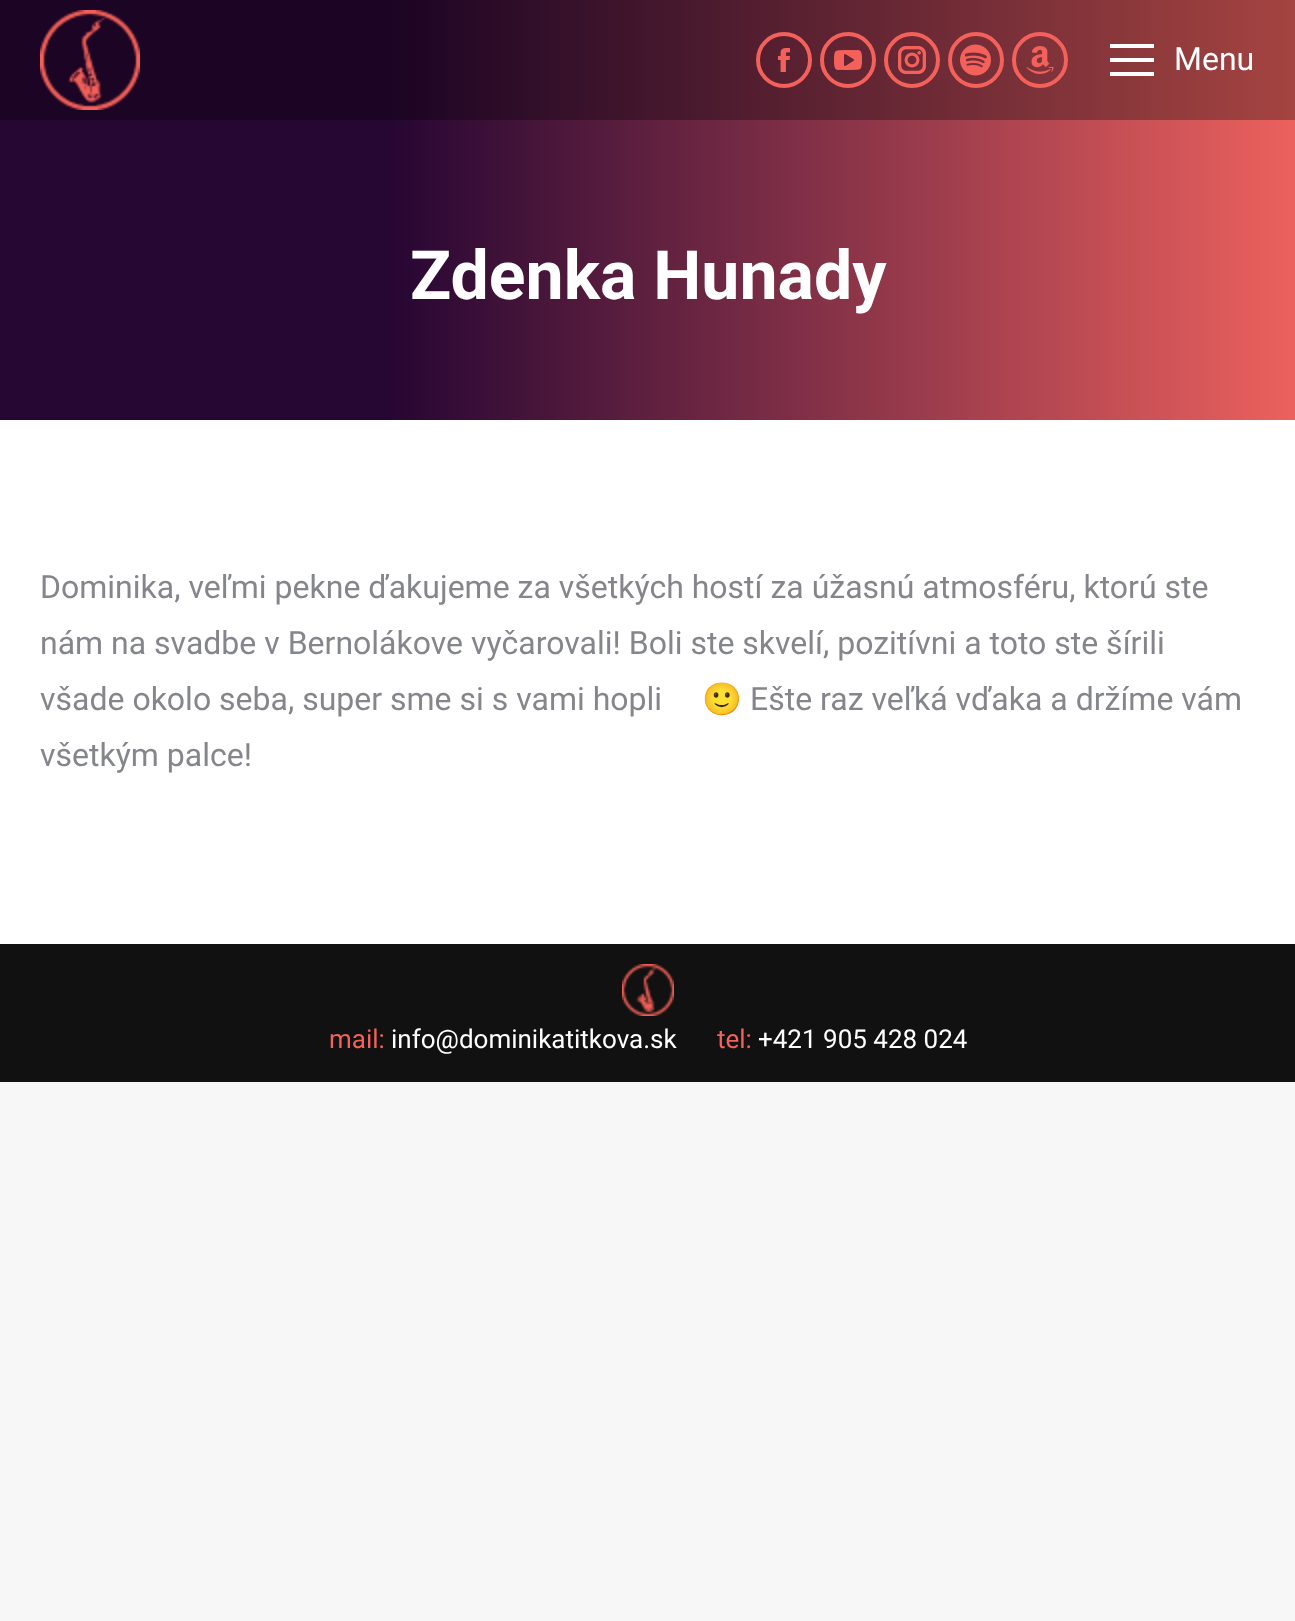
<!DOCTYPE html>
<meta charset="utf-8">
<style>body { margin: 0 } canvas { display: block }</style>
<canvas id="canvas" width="1295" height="1621"></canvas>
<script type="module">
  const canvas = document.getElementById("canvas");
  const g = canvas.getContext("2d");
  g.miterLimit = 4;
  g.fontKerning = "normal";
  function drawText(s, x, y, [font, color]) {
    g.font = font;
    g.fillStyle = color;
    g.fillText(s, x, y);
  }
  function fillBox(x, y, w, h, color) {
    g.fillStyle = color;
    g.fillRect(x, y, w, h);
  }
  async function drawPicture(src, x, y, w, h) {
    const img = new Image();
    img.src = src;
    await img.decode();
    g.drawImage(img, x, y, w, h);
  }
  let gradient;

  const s1 = ["32px Roboto", "#FFFFFF"];
  const s2 = ["bold 68px Roboto", "#FFFFFF"];
  const s3 = ["32px Roboto", "#85868C"];
  const s4 = ["32px Noto Color Emoji", "#85868C"];
  const s5 = ["26px Roboto", "#F3615A"];
  const s6 = ["26px Roboto", "#FFFFFF"];

  fillBox(0, 0, 1295, 1621, "#F7F7F7");
  fillBox(0, 420, 1295, 524, "#FFFFFF");
  gradient = g.createLinearGradient(0, 210, 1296, 210);
  gradient.addColorStop(0.3, "#1B0424");
  gradient.addColorStop(1, "#A54441");
  g.fillStyle = gradient;
  g.fillRect(0, 0, 1295, 120);
  await drawPicture("pic1.png", 40, 10, 100, 100);
  g.beginPath();
  g.arc(784, 60, 26, 0, Math.PI * 2);
  g.strokeStyle = "#F3615A";
  g.lineWidth = 4;
  g.stroke();
  await drawPicture("pic2.png", 777, 48, 14, 24);
  g.beginPath();
  g.arc(848, 60, 26, 0, Math.PI * 2);
  g.stroke();
  await drawPicture("pic3.png", 834, 50, 28, 20);
  g.beginPath();
  g.arc(912, 60, 26, 0, Math.PI * 2);
  g.stroke();
  await drawPicture("pic4.png", 898, 46, 28, 28);
  g.beginPath();
  g.arc(976, 60, 26, 0, Math.PI * 2);
  g.stroke();
  await drawPicture("pic5.png", 960, 44, 31, 32);
  g.beginPath();
  g.arc(1040, 60, 26, 0, Math.PI * 2);
  g.stroke();
  await drawPicture("pic6.png", 1026, 46, 28, 28);
  fillBox(1110, 44, 44, 4, "#FFFFFF");
  fillBox(1110, 58, 44, 4, "#FFFFFF");
  fillBox(1110, 72, 44, 4, "#FFFFFF");
  drawText("Menu", 1174, 70, s1);
  gradient = g.createLinearGradient(0, 210, 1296, 210);
  gradient.addColorStop(0.3, "#260633");
  gradient.addColorStop(1, "#EC615D");
  g.fillStyle = gradient;
  g.fillRect(0, 120, 1295, 300);
  drawText("Zdenka Hunady", 410, 299, s2);
  drawText("Dominika, veľmi pekne ďakujeme za všetkých hostí za úžasnú atmosféru, ktorú ste", 40, 598, s3);
  drawText("nám na svadbe v Bernolákove vyčarovali! Boli ste skvelí, pozitívni a toto ste šírili", 40, 654, s3);
  drawText("všade okolo seba, super sme si s vami hopli", 40, 710, s3);
  drawText("🙂", 702, 710, s4);
  drawText("Ešte raz veľká vďaka a držíme vám", 750, 710, s3);
  drawText("všetkým palce!", 40, 766, s3);
  fillBox(0, 944, 1295, 138, "#111111");
  await drawPicture("pic7.png", 622, 964, 52, 52);
  drawText("mail:", 329, 1048, s5);
  drawText("info@dominikatitkova.sk", 391, 1048, s6);
  drawText("tel:", 717, 1048, s5);
  drawText("+421 905 428 024", 758, 1048, s6);
</script>
